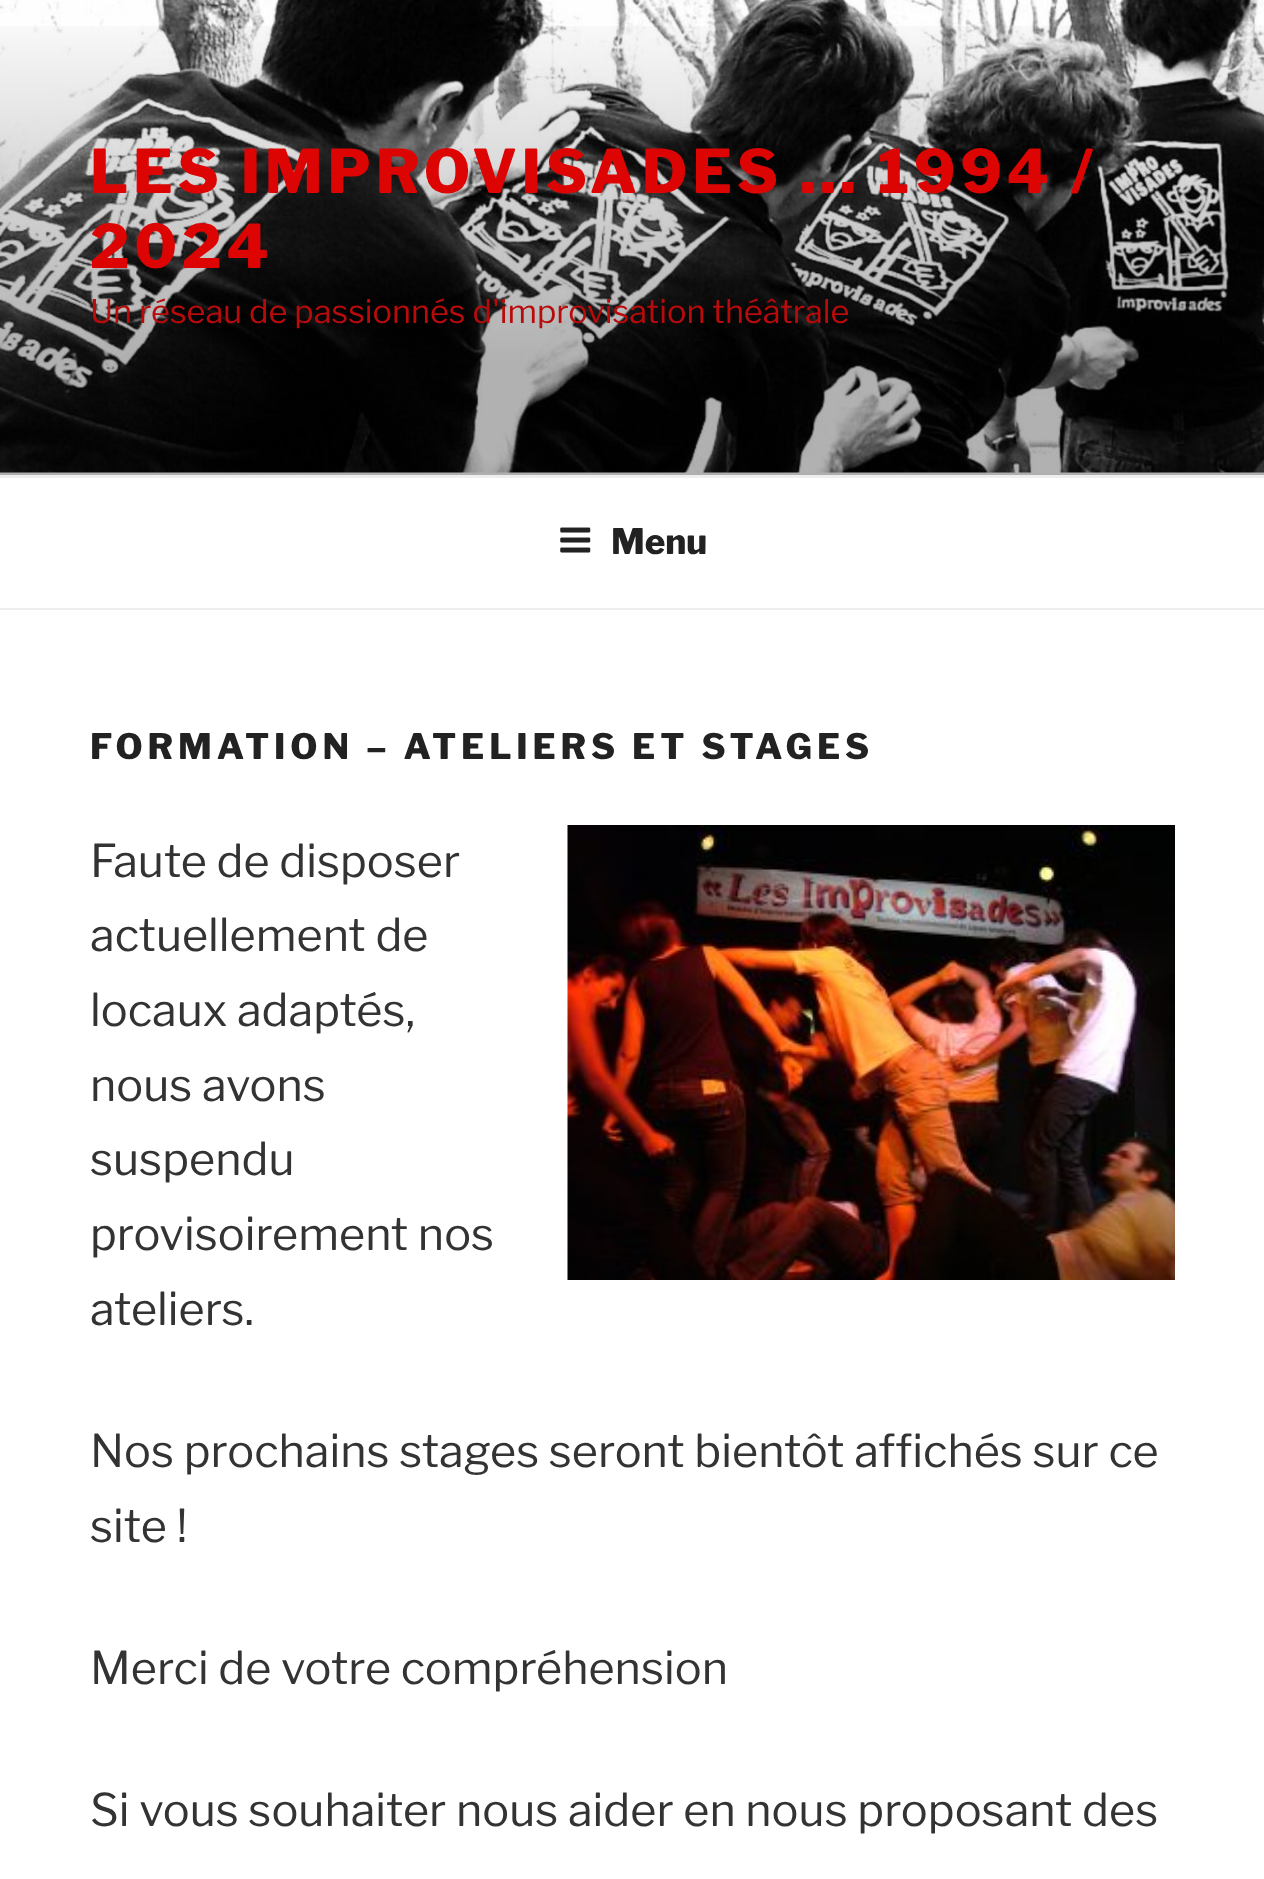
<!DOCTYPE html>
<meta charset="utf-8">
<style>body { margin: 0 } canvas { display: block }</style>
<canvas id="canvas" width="1264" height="1879"></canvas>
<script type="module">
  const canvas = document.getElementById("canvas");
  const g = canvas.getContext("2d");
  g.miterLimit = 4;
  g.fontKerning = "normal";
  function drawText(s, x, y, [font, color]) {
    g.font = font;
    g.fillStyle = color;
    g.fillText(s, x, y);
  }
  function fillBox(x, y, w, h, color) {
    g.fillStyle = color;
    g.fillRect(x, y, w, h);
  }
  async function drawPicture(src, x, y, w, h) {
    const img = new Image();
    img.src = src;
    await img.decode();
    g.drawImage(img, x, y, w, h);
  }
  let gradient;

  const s1 = ["100 60px Libre Franklin", "#DD0404"];
  const s2 = ["100 32.5px 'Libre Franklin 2'", "#B90B0B"];
  const s3 = ["100 35px Libre Franklin", "#222222"];
  const s4 = ["100 45px 'Libre Franklin 2'", "#333333"];

  fillBox(0, 0, 1264, 1879, "#FAFAFA");
  await drawPicture("pic1.png", 0, 0, 1264, 473);
  gradient = g.createLinearGradient(633, 0, 633, 475);
  gradient.addColorStop(0, "rgba(0, 0, 0, 0)");
  gradient.addColorStop(0.75, "rgba(0, 0, 0, 0.3)");
  gradient.addColorStop(1, "rgba(0, 0, 0, 0.3)");
  g.fillStyle = gradient;
  g.fillRect(0, 26, 1264, 449);
  g.letterSpacing = "4.8px";
  drawText("LES IMPROVISADES … 1994 /", 90, 193, s1);
  drawText("2024", 90, 268, s1);
  g.letterSpacing = "0px";
  drawText("Un réseau de passionnés d'improvisation théâtrale", 90, 323, s2);
  fillBox(0, 478, 1264, 130, "#FFFFFF");
  fillBox(0, 475, 1264, 3, "#EEEEEE");
  fillBox(0, 608, 1264, 2, "#EEEEEE");
  await drawPicture("pic2.png", 560, 527, 31, 26);
  drawText("Menu", 611, 554, s3);
  fillBox(0, 610, 1264, 1269, "#FFFFFF");
  g.letterSpacing = "4.9px";
  drawText("FORMATION – ATELIERS ET STAGES", 90, 759, s3);
  g.letterSpacing = "0px";
  drawText("Faute de disposer", 90, 877, s4);
  await drawPicture("pic3.png", 567, 825, 608, 455);
  drawText("actuellement de", 90, 951, s4);
  drawText("locaux adaptés,", 90, 1026, s4);
  drawText("nous avons", 90, 1101, s4);
  drawText("suspendu", 90, 1175, s4);
  drawText("provisoirement nos", 90, 1250, s4);
  drawText("ateliers.", 90, 1325, s4);
  drawText("Nos prochains stages seront bientôt affichés sur ce", 90, 1467, s4);
  drawText("site !", 90, 1542, s4);
  drawText("Merci de votre compréhension", 90, 1684, s4);
  drawText("Si vous souhaiter nous aider en nous proposant des", 90, 1826, s4);
</script>
